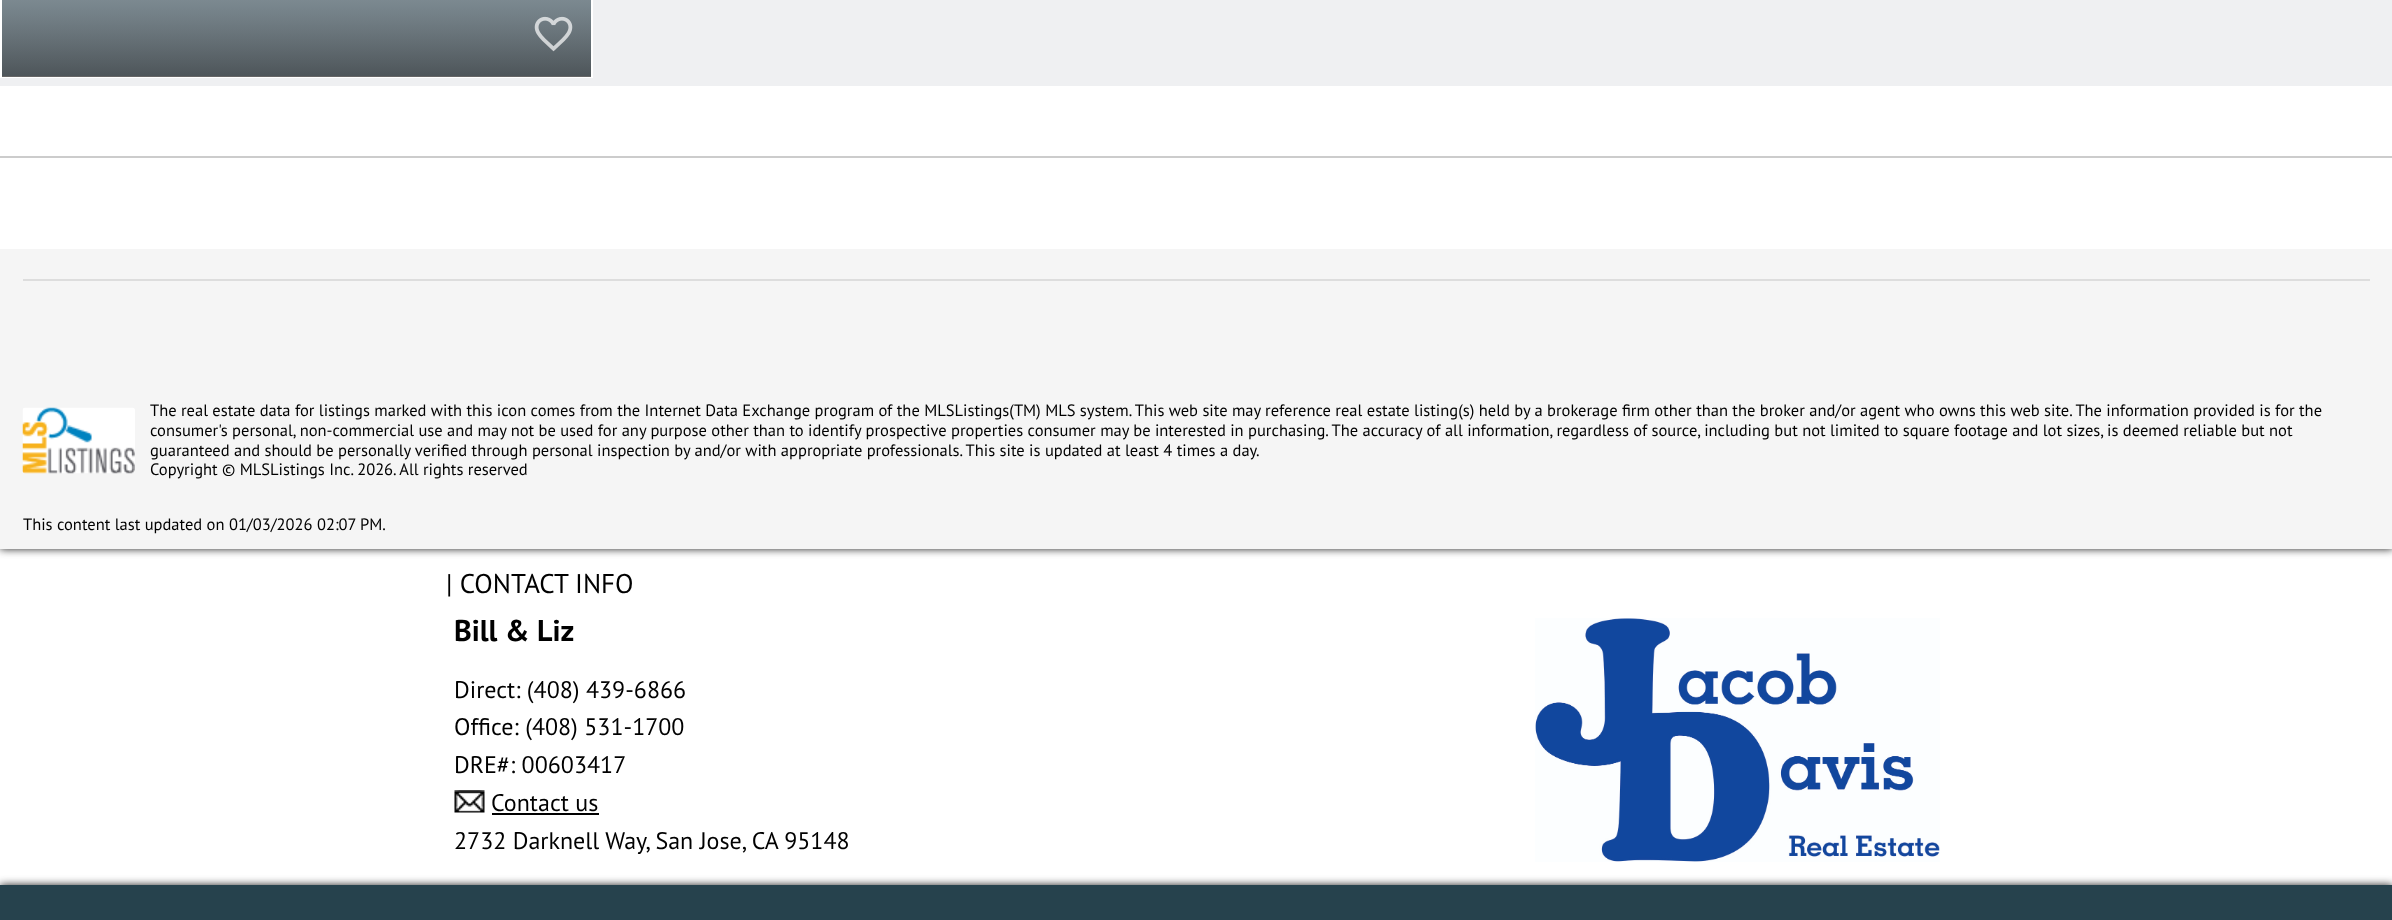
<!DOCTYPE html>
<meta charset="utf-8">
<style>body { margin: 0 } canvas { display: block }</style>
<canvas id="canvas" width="2392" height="920"></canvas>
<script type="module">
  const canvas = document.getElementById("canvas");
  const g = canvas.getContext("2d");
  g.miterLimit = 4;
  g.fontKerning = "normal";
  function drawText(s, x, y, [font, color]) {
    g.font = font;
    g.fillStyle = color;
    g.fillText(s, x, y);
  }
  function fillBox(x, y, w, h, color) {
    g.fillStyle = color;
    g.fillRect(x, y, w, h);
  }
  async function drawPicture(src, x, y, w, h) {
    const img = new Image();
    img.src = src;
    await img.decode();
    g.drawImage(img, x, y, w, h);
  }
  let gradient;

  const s1 = ["16.5px PT Sans", "#000000"];
  const s2 = ["27px PT Sans", "#000000"];
  const s3 = ["bold 30px PT Sans", "#000000"];
  const s4 = ["24px PT Sans", "#000000"];

  fillBox(0, 0, 2392, 920, "#FFFFFF");
  g.fillStyle = "#222222";
  g.filter = "blur(4px)";
  g.beginPath();
  g.rect(0, -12, 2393, 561);
  g.fill();
  g.filter = "none";
  fillBox(0, 249, 2392, 300, "#F5F5F5");
  fillBox(0, 86, 2392, 163, "#FFFFFF");
  fillBox(0, 0, 2392, 86, "#EFF0F2");
  gradient = g.createLinearGradient(296, -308, 296, 77);
  gradient.addColorStop(0.81, "#BFD9E7");
  gradient.addColorStop(0.83, "#BFD9E7");
  gradient.addColorStop(1, "#C0D3DE");
  g.fillStyle = gradient;
  g.fillRect(2, 0, 589, 76);
  g.strokeStyle = "#FFFFFF";
  g.lineWidth = 2;
  g.strokeRect(1, -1, 591, 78);
  gradient = g.createLinearGradient(296, -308, 296, 77);
  gradient.addColorStop(0, "rgba(255, 255, 255, 0.01)");
  gradient.addColorStop(1, "rgba(0, 0, 0, 0.6)");
  g.fillStyle = gradient;
  g.fillRect(2, 0, 589, 77);
  await drawPicture("pic1.png", 534, 16, 39, 36);
  fillBox(0, 156, 2392, 2, "#CCCCCC");
  fillBox(23, 279, 2347, 2, "#DDDDDD");
  await drawPicture("pic2.png", 22, 407, 113, 67);
  drawText("The real estate data for listings marked with this icon comes from the Internet Data Exchange program of the MLSListings(TM) MLS system. This web site may reference real estate listing(s) held by a brokerage firm other than the broker and/or agent who owns this web site. The information provided is for the", 150, 416, s1);
  drawText("consumer's personal, non-commercial use and may not be used for any purpose other than to identify prospective properties consumer may be interested in purchasing. The accuracy of all information, regardless of source, including but not limited to square footage and lot sizes, is deemed reliable but not", 150, 436, s1);
  drawText("guaranteed and should be personally verified through personal inspection by and/or with appropriate professionals. This site is updated at least 4 times a day.", 150, 456, s1);
  drawText("Copyright © MLSListings Inc. 2026. All rights reserved", 150, 475, s1);
  drawText("This content last updated on 01/03/2026 02:07 PM.", 23, 530, s1);
  drawText("| CONTACT INFO", 446, 593, s2);
  drawText("Bill & Liz", 454, 641, s3);
  drawText("Direct: (408) 439-6866", 454, 698, s4);
  drawText("Office: (408) 531-1700", 454, 735, s4);
  drawText("DRE#: 00603417", 454, 773, s4);
  await drawPicture("pic3.png", 454, 790, 31, 23);
  drawText("Contact us", 491, 811, s4);
  fillBox(492, 813, 107, 2, "#000000");
  drawText("2732 Darknell Way, San Jose, CA 95148", 454, 849, s4);
  await drawPicture("pic4.png", 1535, 618, 405, 244);
  g.fillStyle = "#222222";
  g.filter = "blur(4px)";
  g.beginPath();
  g.rect(0, 885, 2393, 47);
  g.fill();
  g.filter = "none";
  fillBox(0, 885, 2392, 35, "#26424D");
</script>
